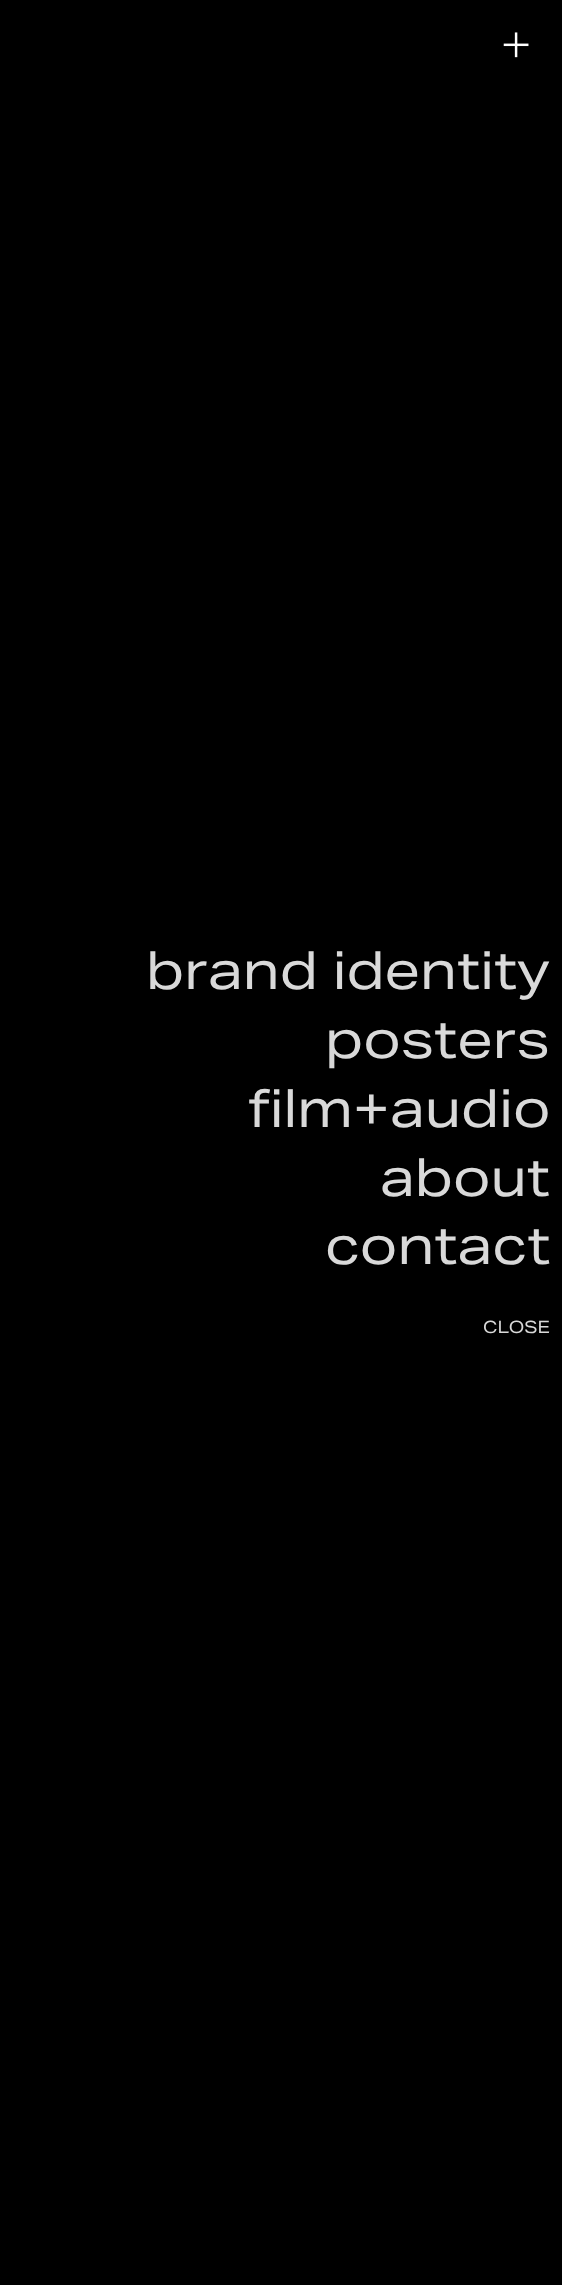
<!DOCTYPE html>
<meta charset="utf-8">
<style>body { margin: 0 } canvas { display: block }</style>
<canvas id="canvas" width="562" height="2285"></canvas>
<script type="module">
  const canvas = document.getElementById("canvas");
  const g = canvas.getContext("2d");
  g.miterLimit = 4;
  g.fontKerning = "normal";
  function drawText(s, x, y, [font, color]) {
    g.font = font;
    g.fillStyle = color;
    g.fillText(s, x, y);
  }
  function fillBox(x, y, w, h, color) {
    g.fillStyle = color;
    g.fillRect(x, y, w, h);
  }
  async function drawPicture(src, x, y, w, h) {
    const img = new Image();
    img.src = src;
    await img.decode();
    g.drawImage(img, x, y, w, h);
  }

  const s1 = ["53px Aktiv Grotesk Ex", "#D9D9D9"];
  const s2 = ["17px Aktiv Grotesk Ex", "#D9D9D9"];

  fillBox(0, 0, 562, 2285, "#000000");
  await drawPicture("pic1.png", 503, 32, 26, 26);
  drawText("brand identity", 146, 989, s1);
  drawText("posters", 325, 1058, s1);
  drawText("film+audio", 248, 1127, s1);
  drawText("about", 380, 1196, s1);
  drawText("contact", 325, 1264, s1);
  drawText("CLOSE", 483, 1333, s2);
</script>
